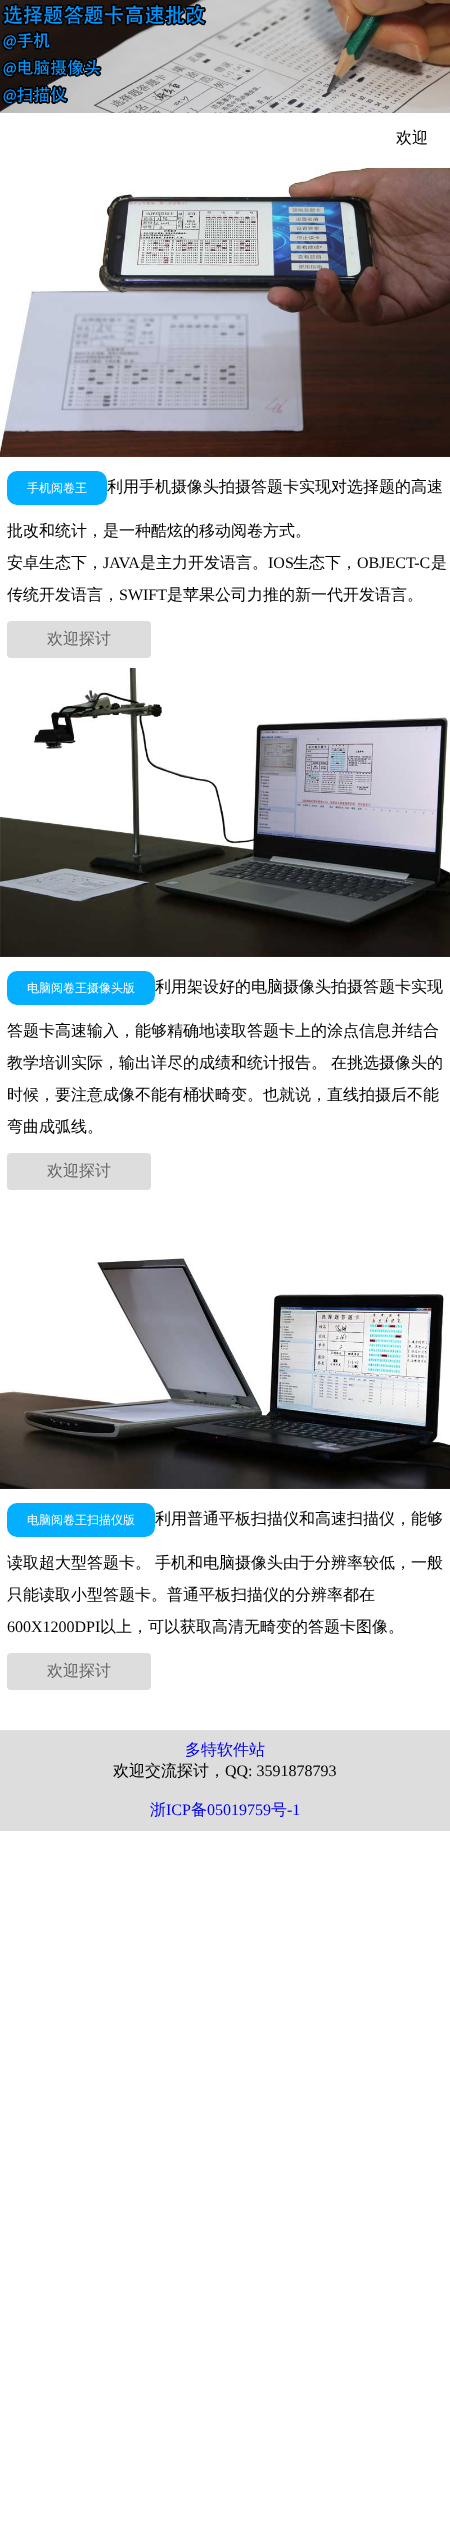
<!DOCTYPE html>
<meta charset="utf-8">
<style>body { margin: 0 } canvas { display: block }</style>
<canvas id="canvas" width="450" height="2533"></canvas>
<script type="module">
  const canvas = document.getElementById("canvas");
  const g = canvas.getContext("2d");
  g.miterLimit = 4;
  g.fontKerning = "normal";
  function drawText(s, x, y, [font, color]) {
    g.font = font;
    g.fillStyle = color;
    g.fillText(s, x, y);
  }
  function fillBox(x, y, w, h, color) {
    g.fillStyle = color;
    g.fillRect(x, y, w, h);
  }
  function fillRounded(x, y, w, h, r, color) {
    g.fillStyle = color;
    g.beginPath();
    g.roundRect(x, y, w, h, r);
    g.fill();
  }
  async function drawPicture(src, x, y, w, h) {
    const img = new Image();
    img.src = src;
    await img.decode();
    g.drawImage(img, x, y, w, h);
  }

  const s1 = ["500 16px WenQuanYi Zen Hei", "#000000"];
  const s2 = ["500 12px WenQuanYi Zen Hei", "#FFFFFF"];
  const s3 = ["16px Liberation Serif", "#000000"];
  const s4 = ["500 16px WenQuanYi Zen Hei", "#686868"];
  const s5 = ["500 16px WenQuanYi Zen Hei", "#0000EE"];
  const s6 = ["16px Liberation Serif", "#0000EE"];

  fillBox(0, 0, 450, 2533, "#FFFFFF");
  await drawPicture("pic1.png", 0, 0, 450, 113);
  drawText("欢迎", 396, 143, s1);
  await drawPicture("pic2.png", 0, 168, 450, 289);
  fillRounded(7, 471, 100, 34, 10, "#04AFFF");
  drawText("手机阅卷王", 27, 492, s2);
  drawText("利用手机摄像头拍摄答题卡实现对选择题的高速", 107, 492, s1);
  drawText("批改和统计，是一种酷炫的移动阅卷方式。", 7, 536, s1);
  drawText("安卓生态下，", 7, 568, s1);
  drawText("JAVA", 103, 568, s3);
  drawText("是主力开发语言。", 140, 568, s1);
  drawText("IOS", 268, 568, s3);
  drawText("生态下，", 293, 568, s1);
  drawText("OBJECT-C", 357, 568, s3);
  drawText("是", 431, 568, s1);
  drawText("传统开发语言，", 7, 600, s1);
  drawText("SWIFT", 119, 600, s3);
  drawText("是苹果公司力推的新一代开发语言。", 167, 600, s1);
  fillRounded(7, 621, 144, 37, 4, "#DDDDDD");
  drawText("欢迎探讨", 47, 644, s4);
  await drawPicture("pic3.png", 0, 668, 450, 289);
  fillRounded(7, 971, 148, 34, 10, "#04AFFF");
  drawText("电脑阅卷王摄像头版", 27, 992, s2);
  drawText("利用架设好的电脑摄像头拍摄答题卡实现", 155, 992, s1);
  drawText("答题卡高速输入，能够精确地读取答题卡上的涂点信息并结合", 7, 1036, s1);
  drawText("教学培训实际，输出详尽的成绩和统计报告。", 7, 1068, s1);
  drawText("在挑选摄像头的", 331, 1068, s1);
  drawText("时候，要注意成像不能有桶状畸变。也就说，直线拍摄后不能", 7, 1100, s1);
  drawText("弯曲成弧线。", 7, 1132, s1);
  fillRounded(7, 1153, 144, 37, 4, "#DDDDDD");
  drawText("欢迎探讨", 47, 1176, s4);
  await drawPicture("pic4.png", 0, 1254, 450, 235);
  fillRounded(7, 1503, 148, 34, 10, "#04AFFF");
  drawText("电脑阅卷王扫描仪版", 27, 1524, s2);
  drawText("利用普通平板扫描仪和高速扫描仪，能够", 155, 1524, s1);
  drawText("读取超大型答题卡。", 7, 1568, s1);
  drawText("手机和电脑摄像头由于分辨率较低，一般", 155, 1568, s1);
  drawText("只能读取小型答题卡。普通平板扫描仪的分辨率都在", 7, 1600, s1);
  drawText("600X1200DPI", 7, 1632, s3);
  drawText("以上，可以获取高清无畸变的答题卡图像。", 100, 1632, s1);
  fillRounded(7, 1653, 144, 37, 4, "#DDDDDD");
  drawText("欢迎探讨", 47, 1676, s4);
  fillBox(0, 1730, 450, 101, "#DDDDDD");
  drawText("多特软件站", 185, 1755, s5);
  drawText("欢迎交流探讨，", 113, 1776, s1);
  drawText("QQ: 3591878793", 225, 1776, s3);
  drawText("浙", 150, 1815, s5);
  drawText("ICP", 166, 1815, s6);
  drawText("备", 191, 1815, s5);
  drawText("05019759", 207, 1815, s6);
  drawText("号", 271, 1815, s5);
  drawText("-1", 287, 1815, s6);
</script>
